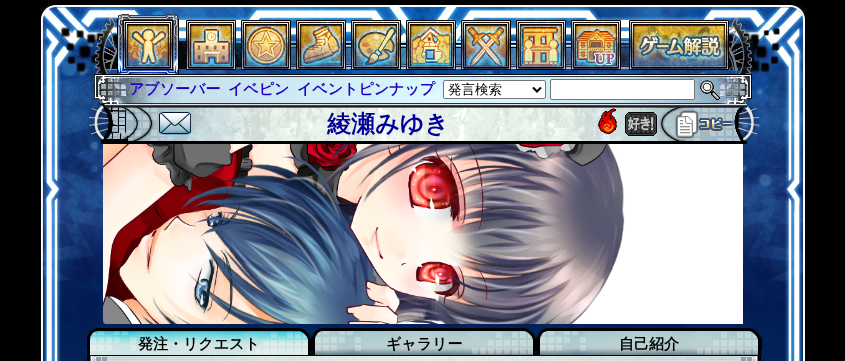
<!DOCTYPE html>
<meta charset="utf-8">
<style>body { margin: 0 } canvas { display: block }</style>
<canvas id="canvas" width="845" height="361"></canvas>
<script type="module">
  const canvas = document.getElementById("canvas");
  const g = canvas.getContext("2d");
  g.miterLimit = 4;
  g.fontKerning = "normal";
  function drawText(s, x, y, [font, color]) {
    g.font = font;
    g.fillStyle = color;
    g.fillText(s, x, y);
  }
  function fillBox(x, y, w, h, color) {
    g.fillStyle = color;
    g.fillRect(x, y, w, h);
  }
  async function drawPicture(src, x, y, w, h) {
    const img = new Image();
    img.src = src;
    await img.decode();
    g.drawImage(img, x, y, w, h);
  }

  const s1 = ["bold 15px WenQuanYi Zen Hei", "#2200C1"];
  const s2 = ["500 13.5px WenQuanYi Zen Hei", "#000000"];
  const s3 = ["bold 24px WenQuanYi Zen Hei", "#000099"];
  const s4 = ["bold 15px WenQuanYi Zen Hei", "#000000"];

  fillBox(0, 0, 845, 361, "#000000");
  await drawPicture("pic1.png", 41, 355, 764, 6);
  await drawPicture("pic2.png", 41, 5, 764, 350);
  await drawPicture("pic3.png", 123, 20, 50, 50);
  await drawPicture("pic4.png", 186, 20, 50, 50);
  await drawPicture("pic5.png", 241, 20, 50, 50);
  await drawPicture("pic6.png", 296, 20, 50, 50);
  await drawPicture("pic7.png", 351, 20, 50, 50);
  await drawPicture("pic8.png", 406, 20, 50, 50);
  await drawPicture("pic9.png", 461, 20, 50, 50);
  await drawPicture("pic10.png", 516, 20, 50, 50);
  await drawPicture("pic11.png", 571, 20, 50, 50);
  await drawPicture("pic12.png", 629, 20, 100, 50);
  await drawPicture("pic13.png", 94, 74, 658, 30);
  drawText("アブソーバー", 129, 94, s1);
  drawText("イベピン", 228, 94, s1);
  drawText("イベントピンナップ", 297, 94, s1);
  g.fillStyle = "#FFFFFF";
  g.beginPath();
  g.roundRect(443.5, 80.5, 102, 18, 1.5);
  g.fill();
  g.strokeStyle = "#767676";
  g.stroke();
  g.beginPath();
  g.moveTo(533, 87.5);
  g.lineTo(537, 91.5);
  g.lineTo(541, 87.5);
  g.strokeStyle = "#000000";
  g.lineWidth = 2;
  g.stroke();
  drawText("発言検索", 448, 94, s2);
  g.fillStyle = "#FFFFFF";
  g.beginPath();
  g.roundRect(550.5, 79.5, 144, 20, 1.5);
  g.fill();
  g.strokeStyle = "#767676";
  g.lineWidth = 1;
  g.stroke();
  await drawPicture("pic14.png", 700, 80, 20, 20);
  await drawPicture("pic15.png", 88, 104, 672, 40);
  await drawPicture("pic16.png", 159, 112, 32, 23);
  drawText("綾瀬みゆき", 327, 132, s3);
  await drawPicture("pic17.png", 598, 108, 19, 26);
  await drawPicture("pic18.png", 625, 112, 32, 24);
  await drawPicture("pic19.png", 658, 107, 89, 35);
  await drawPicture("pic20.png", 103, 144, 640, 180);
  await drawPicture("pic21.png", 87, 328, 225, 28);
  drawText("発注・リクエスト", 138, 349, s4);
  await drawPicture("pic22.png", 312, 328, 225, 28);
  drawText("ギャラリー", 386, 349, s4);
  await drawPicture("pic23.png", 537, 328, 225, 28);
  drawText("自己紹介", 619, 349, s4);
  await drawPicture("pic24.png", 87, 356, 674, 5);
</script>
